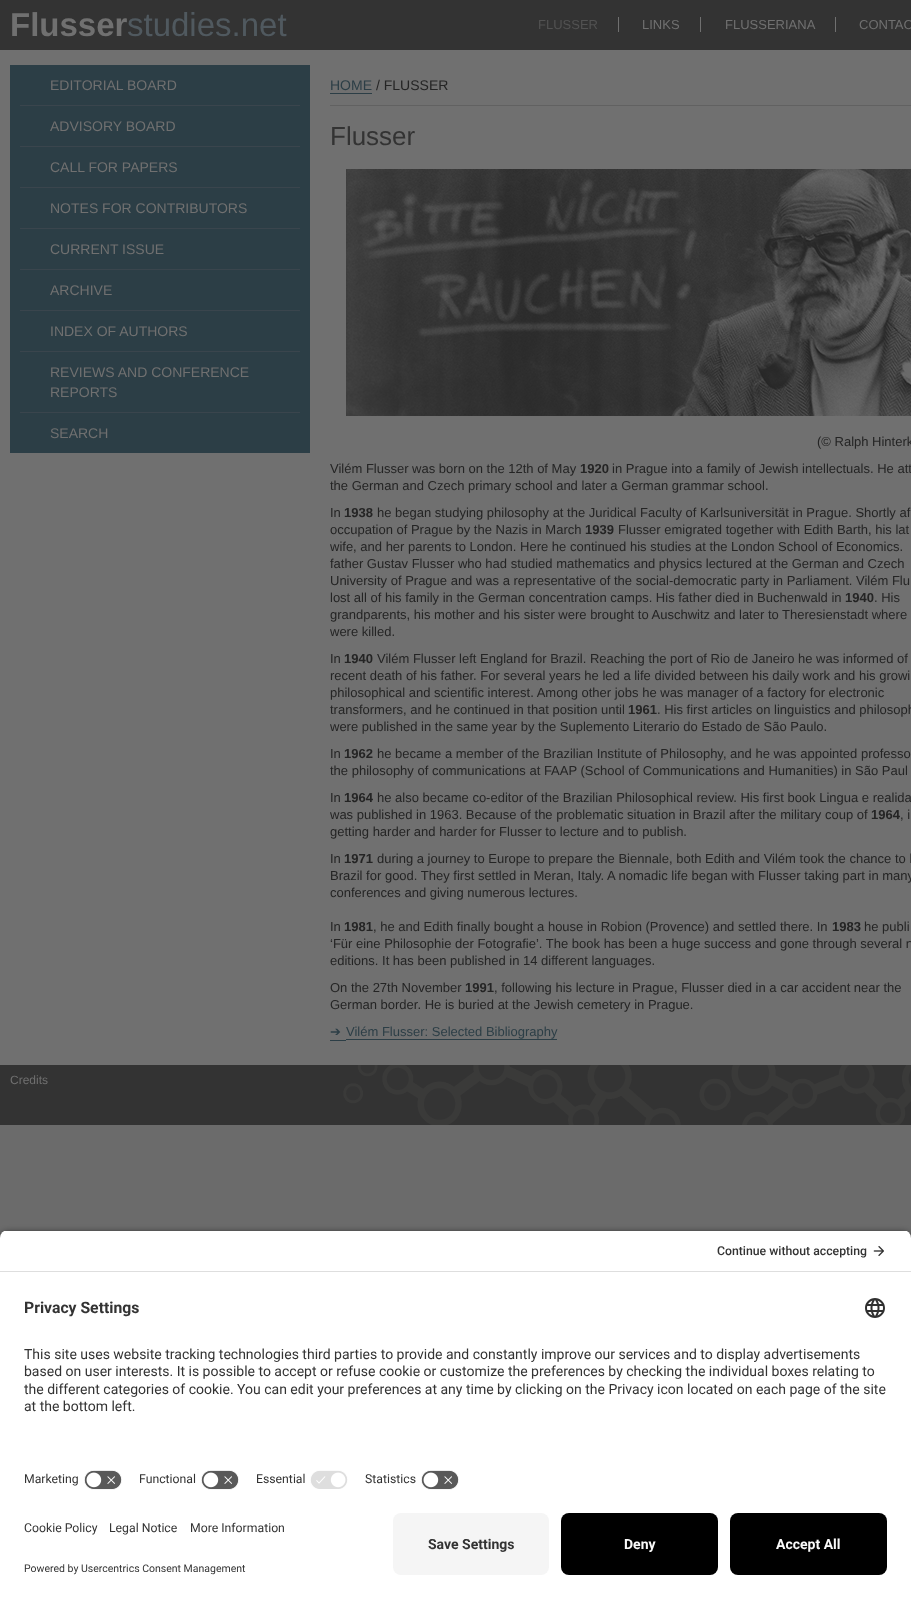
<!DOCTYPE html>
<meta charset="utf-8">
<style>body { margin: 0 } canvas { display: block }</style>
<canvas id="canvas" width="911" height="1599"></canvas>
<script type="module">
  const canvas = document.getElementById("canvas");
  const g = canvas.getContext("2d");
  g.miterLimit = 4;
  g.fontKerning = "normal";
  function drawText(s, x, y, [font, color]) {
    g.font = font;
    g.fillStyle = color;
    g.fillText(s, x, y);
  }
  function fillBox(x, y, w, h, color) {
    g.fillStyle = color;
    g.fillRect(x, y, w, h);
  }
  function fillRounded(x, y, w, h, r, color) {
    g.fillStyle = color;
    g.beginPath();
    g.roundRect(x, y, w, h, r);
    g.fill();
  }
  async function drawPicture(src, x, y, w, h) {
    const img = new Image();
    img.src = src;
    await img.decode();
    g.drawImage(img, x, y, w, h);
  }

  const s1 = ["bold 33px Liberation Sans", "#707070"];
  const s2 = ["33px Liberation Sans", "#50595F"];
  const s3 = ["13px Liberation Sans", "#525252"];
  const s4 = ["13px Liberation Sans", "#707070"];
  const s5 = ["14px Liberation Sans", "#707070"];
  const s6 = ["14px Liberation Sans", "#2C3E46"];
  const s7 = ["14px Liberation Sans", "#242424"];
  const s8 = ["26px Liberation Sans", "#333333"];
  const s9 = ["13px Liberation Sans", "#242424"];
  const s10 = ["bold 13px Liberation Sans", "#242424"];
  const s11 = ["13px DejaVu Sans", "#2C3E46"];
  const s12 = ["13px Liberation Sans", "#2C3E46"];
  const s13 = ["12px Liberation Sans", "#707070"];
  const s14 = ["500 12.25px Roboto", "#333333"];
  const s15 = ["bold 15.75px Roboto", "#333333"];
  const s16 = ["14px Roboto", "#333333"];
  const s17 = ["12.25px Roboto", "#333333"];
  const s18 = ["10.5px Roboto", "#333333"];
  const s19 = ["bold 14px Roboto", "#333333"];
  const s20 = ["bold 14px Roboto", "#FAFAFA"];

  fillBox(0, 0, 911, 1599, "#6B6B6B");
  fillBox(0, 50, 911, 1015, "#707070");
  fillBox(0, 0, 911, 50, "#333333");
  drawText("Flusser", 10, 36, s1);
  drawText("studies.net", 127, 36, s2);
  drawText("FLUSSER", 538, 29, s3);
  fillBox(618, 17, 1, 15, "#707070");
  drawText("LINKS", 642, 29, s4);
  fillBox(700, 17, 1, 15, "#707070");
  drawText("FLUSSERIANA", 725, 29, s4);
  fillBox(835, 17, 1, 15, "#707070");
  drawText("CONTAC", 859, 29, s4);
  fillBox(10, 65, 300, 388, "#2C3E46");
  fillBox(20, 105, 280, 1, "#3A454D");
  drawText("EDITORIAL BOARD", 50, 90, s5);
  fillBox(20, 146, 280, 1, "#3A454D");
  drawText("ADVISORY BOARD", 50, 131, s5);
  fillBox(20, 187, 280, 1, "#3A454D");
  drawText("CALL FOR PAPERS", 50, 172, s5);
  fillBox(20, 228, 280, 1, "#3A454D");
  drawText("NOTES FOR CONTRIBUTORS", 50, 213, s5);
  fillBox(20, 269, 280, 1, "#3A454D");
  drawText("CURRENT ISSUE", 50, 254, s5);
  fillBox(20, 310, 280, 1, "#3A454D");
  drawText("ARCHIVE", 50, 295, s5);
  fillBox(20, 351, 280, 1, "#3A454D");
  drawText("INDEX OF AUTHORS", 50, 336, s5);
  fillBox(20, 412, 280, 1, "#3A454D");
  drawText("REVIEWS AND CONFERENCE", 50, 377, s5);
  drawText("REPORTS", 50, 397, s5);
  drawText("SEARCH", 50, 438, s5);
  fillBox(330, 105, 581, 1, "#616161");
  drawText("HOME", 330, 90, s6);
  fillBox(330, 93, 42, 1, "#2C3E46");
  drawText("/ FLUSSER", 376, 90, s7);
  drawText("Flusser", 330, 145, s8);
  await drawPicture("pic1.png", 346, 169, 565, 247);
  drawText("(© Ralph Hinterk", 817, 446, s9);
  drawText("Vilém Flusser was born on the 12th of May", 330, 473, s9);
  drawText("1920", 580, 473, s10);
  drawText("in Prague into a family of Jewish intellectuals. He att", 612, 473, s9);
  drawText("the German and Czech primary school and later a German grammar school.", 330, 490, s9);
  drawText("In", 330, 517, s9);
  drawText("1938", 344, 517, s10);
  drawText("he began studying philosophy at the Juridical Faculty of Karlsuniversität in Prague. Shortly af", 377, 517, s9);
  drawText("occupation of Prague by the Nazis in March", 330, 534, s9);
  drawText("1939", 585, 534, s10);
  drawText("Flusser emigrated together with Edith Barth, his lat", 618, 534, s9);
  drawText("wife, and her parents to London. Here he continued his studies at the London School of Economics.", 330, 551, s9);
  drawText("father Gustav Flusser who had studied mathematics and physics lectured at the German and Czech", 330, 568, s9);
  drawText("University of Prague and was a representative of the social-democratic party in Parliament. Vilém Flu", 330, 585, s9);
  drawText("lost all of his family in the German concentration camps. His father died in Buchenwald in", 330, 602, s9);
  drawText("1940", 845, 602, s10);
  drawText(". His", 874, 602, s9);
  drawText("grandparents, his mother and his sister were brought to Auschwitz and later to Theresienstadt where", 330, 619, s9);
  drawText("were killed.", 330, 636, s9);
  drawText("In", 330, 663, s9);
  drawText("1940", 344, 663, s10);
  drawText("Vilém Flusser left England for Brazil. Reaching the port of Rio de Janeiro he was informed of", 377, 663, s9);
  drawText("recent death of his father. For several years he led a life divided between his daily work and his growi", 330, 680, s9);
  drawText("philosophical and scientific interest. Among other jobs he was manager of a factory for electronic", 330, 697, s9);
  drawText("transformers, and he continued in that position until", 330, 714, s9);
  drawText("1961", 628, 714, s10);
  drawText(". His first articles on linguistics and philosoph", 657, 714, s9);
  drawText("were published in the same year by the Suplemento Literario do Estado de São Paulo.", 330, 731, s9);
  drawText("In", 330, 758, s9);
  drawText("1962", 344, 758, s10);
  drawText("he became a member of the Brazilian Institute of Philosophy, and he was appointed professo", 377, 758, s9);
  drawText("the philosophy of communications at FAAP (School of Communications and Humanities) in São Paul", 330, 775, s9);
  drawText("In", 330, 802, s9);
  drawText("1964", 344, 802, s10);
  drawText("he also became co-editor of the Brazilian Philosophical review. His first book Lingua e realida", 377, 802, s9);
  drawText("was published in 1963. Because of the problematic situation in Brazil after the military coup of", 330, 819, s9);
  drawText("1964", 871, 819, s10);
  drawText(", i", 900, 819, s9);
  drawText("getting harder and harder for Flusser to lecture and to publish.", 330, 836, s9);
  drawText("In", 330, 863, s9);
  drawText("1971", 344, 863, s10);
  drawText("during a journey to Europe to prepare the Biennale, both Edith and Vilém took the chance to l", 377, 863, s9);
  drawText("Brazil for good. They first settled in Meran, Italy. A nomadic life began with Flusser taking part in many", 330, 880, s9);
  drawText("conferences and giving numerous lectures.", 330, 897, s9);
  drawText("In", 330, 931, s9);
  drawText("1981", 344, 931, s10);
  drawText(", he and Edith finally bought a house in Robion (Provence) and settled there. In", 373, 931, s9);
  drawText("1983", 832, 931, s10);
  drawText("he publi", 864, 931, s9);
  drawText("‘Für eine Philosophie der Fotografie’. The book has been a huge success and gone through several n", 330, 948, s9);
  drawText("editions. It has been published in 14 different languages.", 330, 965, s9);
  drawText("On the 27th November", 330, 992, s9);
  drawText("1991", 465, 992, s10);
  drawText(", following his lecture in Prague, Flusser died in a car accident near the", 494, 992, s9);
  drawText("German border. He is buried at the Jewish cemetery in Prague.", 330, 1009, s9);
  drawText("➔", 330, 1036, s11);
  drawText("Vilém Flusser: Selected Bibliography", 346, 1036, s12);
  fillBox(330, 1040, 16, 1, "#2C3E46");
  fillBox(346, 1039, 211, 1, "#2C3E46");
  fillBox(0, 1065, 911, 60, "#333333");
  drawText("Credits", 10, 1084, s13);
  await drawPicture("pic2.png", 343, 1065, 568, 60);
  g.fillStyle = "rgba(0, 0, 0, 0.8)";
  g.filter = "blur(3.5px)";
  g.beginPath();
  g.roundRect(0, 1233, 911, 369, 8);
  g.fill();
  g.filter = "none";
  g.save();
  g.beginPath();
  g.roundRect(0, 1230, 911, 275, [8, 8, 0, 0]);
  g.clip();
  fillBox(0, 1231, 911, 40, "#FFFFFF");
  g.restore();
  fillBox(0, 1271, 911, 1, "#DEDEDE");
  drawText("Continue without accepting", 717, 1255, s14);
  await drawPicture("pic3.png", 873, 1246, 11, 10);
  fillBox(0, 1272, 911, 327, "#FFFFFF");
  drawText("Privacy Settings", 24, 1313, s15);
  await drawPicture("pic4.png", 865, 1298, 20, 20);
  drawText("This site uses website tracking technologies third parties to provide and constantly improve our services and to display advertisements", 24, 1359, s16);
  drawText("based on user interests. It is possible to accept or refuse cookie or customize the preferences by checking the individual boxes relating to", 24, 1376, s16);
  drawText("the different categories of cookie. You can edit your preferences at any time by clicking on the Privacy icon located on each page of the site", 24, 1394, s16);
  drawText("at the bottom left.", 24, 1411, s16);
  drawText("Marketing", 24, 1483, s17);
  await drawPicture("pic5.png", 84, 1470, 38, 20);
  drawText("Functional", 139, 1483, s17);
  await drawPicture("pic5.png", 201, 1470, 38, 20);
  drawText("Essential", 256, 1483, s17);
  await drawPicture("pic6.png", 310, 1470, 38, 19);
  drawText("Statistics", 365, 1483, s17);
  await drawPicture("pic5.png", 421, 1470, 38, 20);
  drawText("Cookie Policy", 24, 1532, s17);
  drawText("Legal Notice", 109, 1532, s17);
  drawText("More Information", 190, 1532, s17);
  drawText("Powered by Usercentrics Consent Management", 24, 1572, s18);
  fillRounded(393, 1513, 156, 62, 8, "#F5F5F5");
  drawText("Save Settings", 428, 1549, s19);
  fillRounded(561, 1513, 157, 62, 8, "#000000");
  drawText("Deny", 624, 1549, s20);
  fillRounded(730, 1513, 157, 62, 8, "#000000");
  drawText("Accept All", 776, 1549, s20);
</script>
